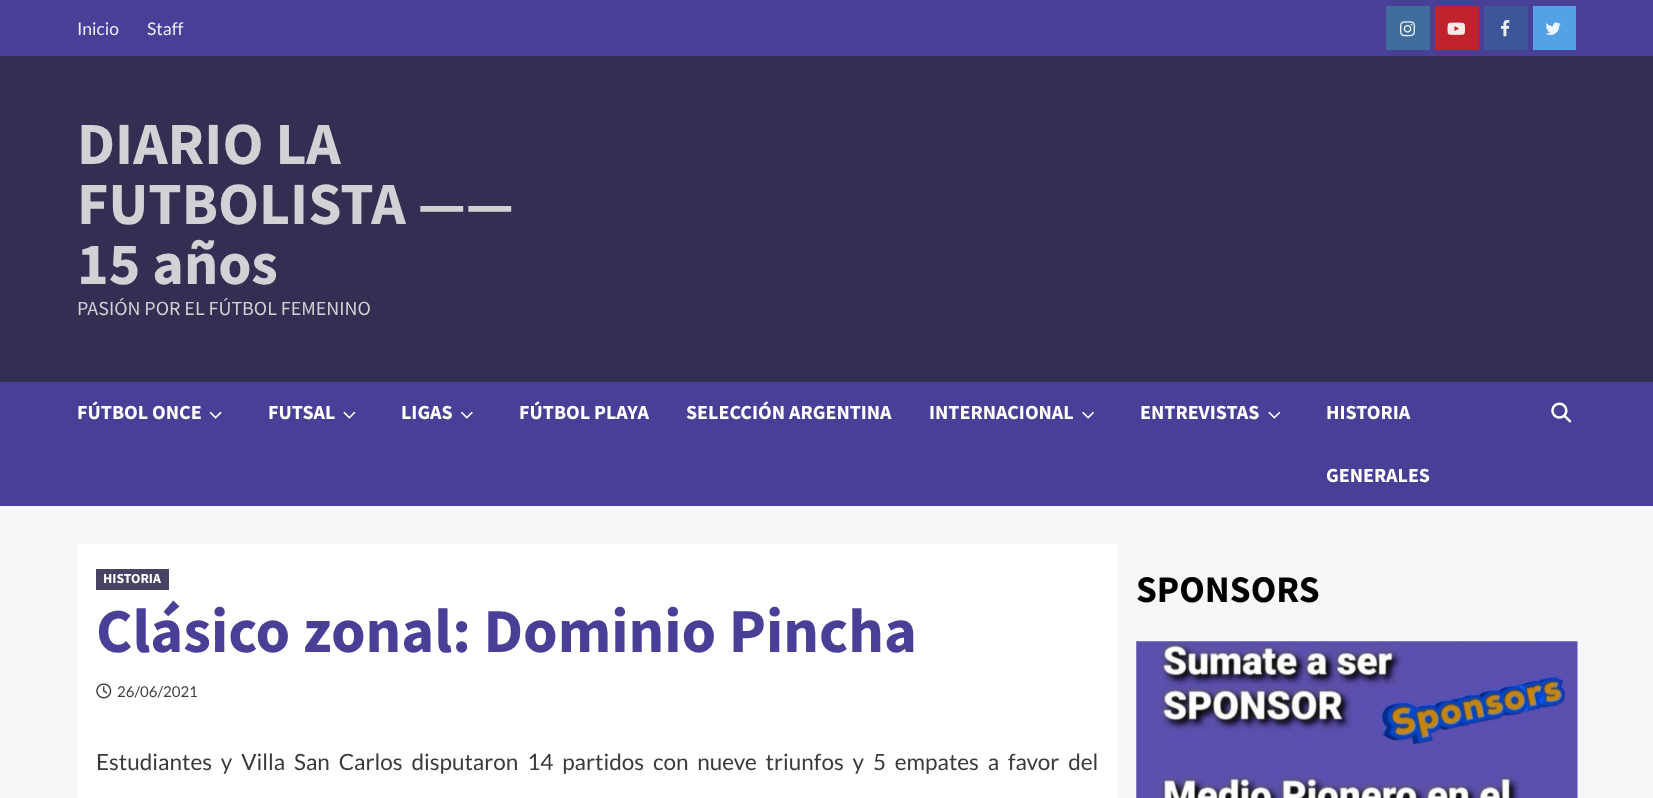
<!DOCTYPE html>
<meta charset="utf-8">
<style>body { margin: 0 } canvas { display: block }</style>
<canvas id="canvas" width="1653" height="798"></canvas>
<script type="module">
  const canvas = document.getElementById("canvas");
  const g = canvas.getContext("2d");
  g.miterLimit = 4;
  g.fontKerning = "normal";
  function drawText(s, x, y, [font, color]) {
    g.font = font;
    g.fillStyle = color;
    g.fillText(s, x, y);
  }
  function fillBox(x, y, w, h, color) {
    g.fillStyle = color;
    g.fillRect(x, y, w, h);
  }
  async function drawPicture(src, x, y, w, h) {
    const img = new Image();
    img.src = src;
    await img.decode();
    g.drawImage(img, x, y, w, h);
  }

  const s1 = ["17.5px Lato", "#EDECF5"];
  const s2 = ["bold 60px Source Sans Pro", "#D2D1D6"];
  const s3 = ["20px Source Sans Pro", "#D2D1D6"];
  const s4 = ["bold 20px Source Sans Pro", "#FFFFFF"];
  const s5 = ["bold 13.75px Source Sans Pro", "#FFFFFF"];
  const s6 = ["bold 62.5px Source Sans Pro", "#493F96"];
  const s7 = ["15px Lato", "#404040"];
  const s8 = ["22.5px Lato", "#3A3A3A"];
  const s9 = ["bold 37.5px Source Sans Pro", "#000000"];

  fillBox(0, 0, 1653, 798, "#F7F7F7");
  fillBox(0, 0, 1653, 56, "#493F96");
  drawText("Inicio", 77, 35, s1);
  drawText("Staff", 147, 35, s1);
  fillBox(1386, 6, 44, 44, "#406D9B");
  await drawPicture("pic1.png", 1400, 21, 15, 16);
  fillBox(1435, 6, 44, 44, "#C0232B");
  await drawPicture("pic2.png", 1447, 22, 18, 13);
  fillBox(1484, 6, 44, 44, "#3C5699");
  await drawPicture("pic3.png", 1500, 20, 10, 17);
  fillBox(1533, 6, 43, 44, "#54A1E5");
  await drawPicture("pic4.png", 1545, 22, 16, 13);
  fillBox(0, 56, 1653, 326, "#332F52");
  drawText("DIARIO LA", 77, 164, s2);
  drawText("FUTBOLISTA ——", 77, 224, s2);
  drawText("15 años", 77, 284, s2);
  drawText("PASIÓN POR EL FÚTBOL FEMENINO", 77, 315, s3);
  fillBox(0, 382, 1653, 124, "#493F96");
  drawText("FÚTBOL ONCE", 77, 419, s4);
  await drawPicture("pic5.png", 209, 411, 13, 8);
  drawText("FUTSAL", 268, 419, s4);
  await drawPicture("pic6.png", 343, 411, 13, 8);
  drawText("LIGAS", 401, 419, s4);
  await drawPicture("pic7.png", 460, 411, 13, 8);
  drawText("FÚTBOL PLAYA", 519, 419, s4);
  drawText("SELECCIÓN ARGENTINA", 686, 419, s4);
  drawText("INTERNACIONAL", 929, 419, s4);
  await drawPicture("pic8.png", 1082, 411, 12, 8);
  drawText("ENTREVISTAS", 1140, 419, s4);
  await drawPicture("pic6.png", 1268, 411, 13, 8);
  drawText("HISTORIA", 1326, 419, s4);
  drawText("GENERALES", 1326, 482, s4);
  await drawPicture("pic9.png", 1551, 402, 21, 21);
  fillBox(78, 544, 1040, 254, "#FFFFFF");
  fillBox(96, 569, 73, 21, "#474463");
  drawText("HISTORIA", 103, 583, s5);
  drawText("Clásico zonal: Dominio Pincha", 96, 652, s6);
  await drawPicture("pic10.png", 96, 683, 16, 16);
  drawText("26/06/2021", 117, 697, s7);
  g.wordSpacing = "4.5px";
  drawText("Estudiantes y Villa San Carlos disputaron 14 partidos con nueve triunfos y 5 empates a favor del", 96, 770, s8);
  g.wordSpacing = "0px";
  drawText("SPONSORS", 1136, 602, s9);
  await drawPicture("pic11.png", 1136, 641, 442, 157);
</script>
